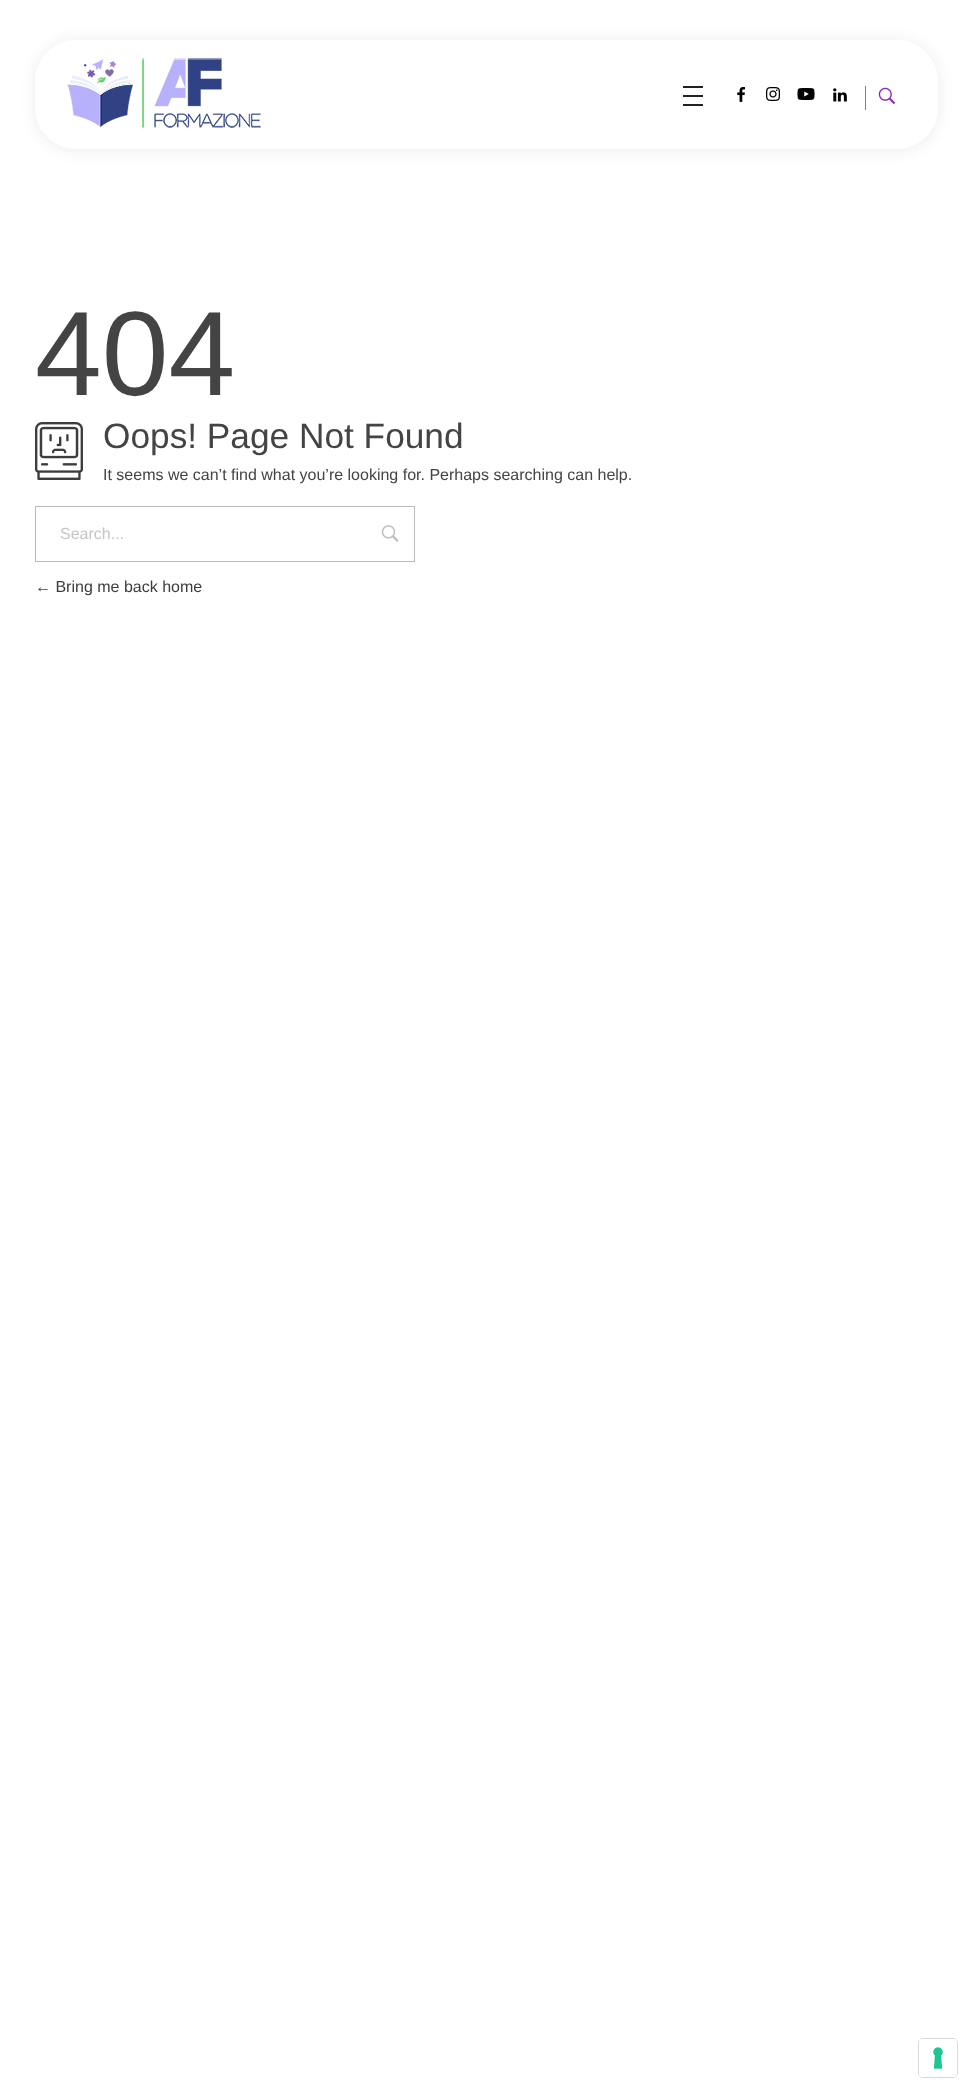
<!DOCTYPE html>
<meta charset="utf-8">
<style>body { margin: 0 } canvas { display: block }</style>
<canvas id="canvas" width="973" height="2093"></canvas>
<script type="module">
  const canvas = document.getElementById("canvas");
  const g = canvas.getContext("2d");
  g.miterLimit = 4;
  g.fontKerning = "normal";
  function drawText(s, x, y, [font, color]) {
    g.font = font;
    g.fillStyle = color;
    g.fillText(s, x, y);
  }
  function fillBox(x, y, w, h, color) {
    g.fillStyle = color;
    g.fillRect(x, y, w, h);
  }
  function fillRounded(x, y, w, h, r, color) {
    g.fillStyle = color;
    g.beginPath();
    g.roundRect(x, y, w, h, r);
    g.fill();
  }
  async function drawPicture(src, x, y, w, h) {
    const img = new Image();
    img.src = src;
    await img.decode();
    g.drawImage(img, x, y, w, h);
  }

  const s1 = ["120px Liberation Sans", "#444444"];
  const s2 = ["35.25px Liberation Sans", "#444444"];
  const s3 = ["16px Liberation Sans", "#444444"];
  const s4 = ["16px Liberation Sans", "#C5C5C5"];
  const s5 = ["16px Liberation Sans", "#3D3D3D"];

  fillBox(0, 0, 973, 2093, "#FFFFFF");
  g.save();
  g.beginPath();
  g.moveTo(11, 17);
  g.lineTo(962, 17);
  g.lineTo(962, 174);
  g.lineTo(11, 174);
  g.closePath();
  g.moveTo(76, 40);
  g.lineTo(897, 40);
  g.bezierCurveTo(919.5, 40, 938, 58.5, 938, 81);
  g.lineTo(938, 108);
  g.bezierCurveTo(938, 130.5, 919.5, 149, 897, 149);
  g.lineTo(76, 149);
  g.bezierCurveTo(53.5, 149, 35, 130.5, 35, 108);
  g.lineTo(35, 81);
  g.bezierCurveTo(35, 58.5, 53.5, 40, 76, 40);
  g.closePath();
  g.clip("evenodd");
  g.fillStyle = "rgba(0, 0, 0, 0.08)";
  g.filter = "blur(7.5px)";
  g.beginPath();
  g.roundRect(35, 41, 903, 109, 41);
  g.fill();
  g.filter = "none";
  g.restore();
  await drawPicture("pic1.png", 67, 58, 194, 70);
  fillBox(683, 86, 20, 2, "#222222");
  fillBox(683, 95, 20, 2, "#222222");
  fillBox(683, 104, 20, 2, "#222222");
  fillBox(865, 86, 1, 24, "#818080");
  await drawPicture("pic2.png", 737, 87, 8, 15);
  await drawPicture("pic3.png", 766, 87, 14, 14);
  await drawPicture("pic4.png", 797, 88, 18, 12);
  await drawPicture("pic5.png", 833, 88, 14, 14);
  await drawPicture("pic6.png", 878, 87, 18, 18);
  drawText("404", 35, 395, s1);
  await drawPicture("pic7.png", 35, 422, 48, 58);
  drawText("Oops! Page Not Found", 103, 448, s2);
  drawText("It seems we can’t find what you’re looking for. Perhaps searching can help.", 103, 480, s3);
  g.strokeStyle = "#BBBBBB";
  g.strokeRect(35.5, 506.5, 379, 55);
  drawText("Search...", 60, 539, s4);
  await drawPicture("pic8.png", 381, 525, 18, 17);
  drawText("← Bring me back home", 35, 592, s5);
  g.beginPath();
  g.roundRect(918.5, 2038.5, 39, 39, 4.5);
  g.strokeStyle = "#D9D9D9";
  g.stroke();
  fillRounded(919, 2039, 38, 38, 4, "#FFFFFF");
  await drawPicture("pic9.png", 933, 2047, 10, 22);
</script>
